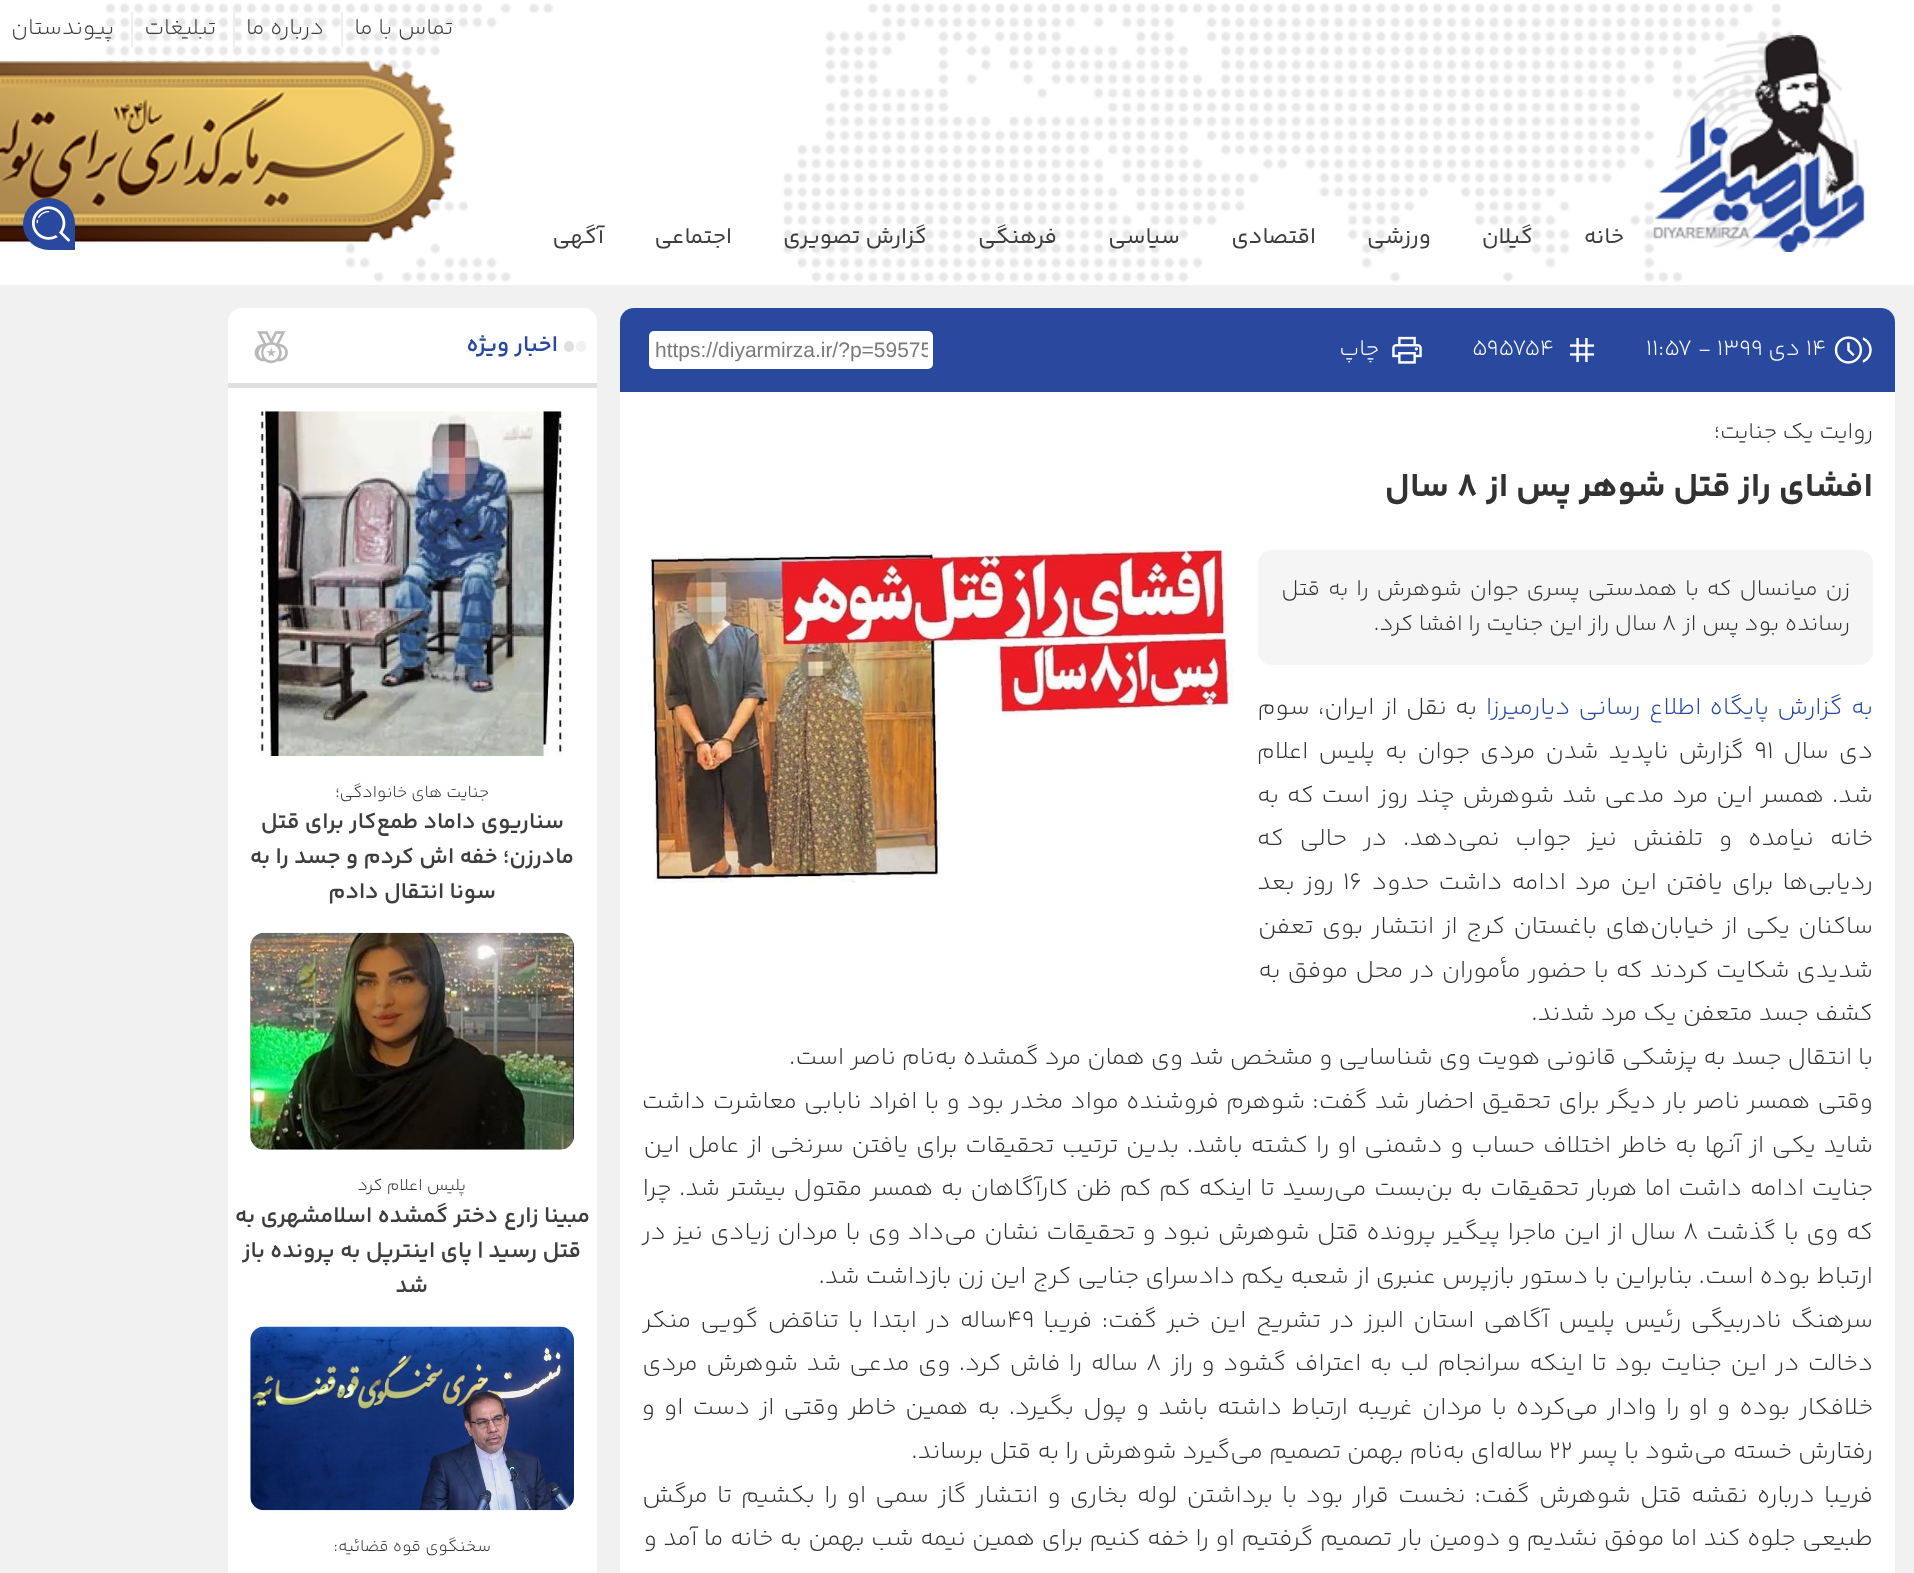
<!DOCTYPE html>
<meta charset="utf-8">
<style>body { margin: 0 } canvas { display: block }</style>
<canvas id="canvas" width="1914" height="1573"></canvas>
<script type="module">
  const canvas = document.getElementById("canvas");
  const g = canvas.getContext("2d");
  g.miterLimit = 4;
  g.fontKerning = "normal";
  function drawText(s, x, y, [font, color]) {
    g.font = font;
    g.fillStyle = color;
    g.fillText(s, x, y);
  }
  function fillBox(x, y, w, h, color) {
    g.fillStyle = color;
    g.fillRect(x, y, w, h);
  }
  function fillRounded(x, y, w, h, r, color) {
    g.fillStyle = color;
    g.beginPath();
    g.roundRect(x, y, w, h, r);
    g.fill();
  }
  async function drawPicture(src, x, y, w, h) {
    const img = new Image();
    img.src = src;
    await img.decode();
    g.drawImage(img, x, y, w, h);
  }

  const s1 = ["300 22.75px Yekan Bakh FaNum", "#3E3E3E"];
  const s2 = ["22.75px Yekan Bakh FaNum", "#3E3E3E"];
  const s3 = ["300 22.75px Yekan Bakh FaNum", "#FFFFFF"];
  const s4 = ["21px Liberation Sans", "#7A7A7A"];
  const s5 = ["300 22.75px Yekan Bakh FaNum", "#323232"];
  const s6 = ["bold 34.1px Yekan Bakh FaNum", "#323232"];
  const s7 = ["300 24.5px Yekan Bakh FaNum", "#28499E"];
  const s8 = ["300 24.5px Yekan Bakh FaNum", "#323232"];
  const s9 = ["600 22.75px Yekan Bakh FaNum", "#28499E"];
  const s10 = ["300 17px Yekan Bakh FaNum", "#323232"];
  const s11 = ["600 22.75px Yekan Bakh FaNum", "#3E3E3E"];

  fillBox(0, 0, 1914, 1573, "#F1F1F1");
  fillBox(0, 0, 1914, 285, "#FFFFFF");
  await drawPicture("pic1.png", 0, 3, 1796, 279);
  await drawPicture("pic2.png", 1653, 35, 212, 217);
  fillBox(341, 12, 2, 35, "#EEEEEE");
  g.direction = "rtl";
  drawText("تماس با ما", 453, 34, s1);
  fillBox(233, 12, 2, 35, "#EEEEEE");
  drawText("درباره ما", 324, 34, s1);
  fillBox(131, 12, 2, 35, "#EEEEEE");
  drawText("تبلیغات", 216, 34, s1);
  drawText("پیوندستان", 114, 34, s1);
  drawText("خانه", 1624, 243, s2);
  drawText("گیلان", 1533, 243, s2);
  drawText("ورزشی", 1431, 243, s2);
  drawText("اقتصادی", 1316, 243, s2);
  drawText("سیاسی", 1180, 243, s2);
  drawText("فرهنگی", 1057, 243, s2);
  drawText("گزارش تصویری", 927, 243, s2);
  drawText("اجتماعی", 732, 243, s2);
  drawText("آگهی", 604, 243, s2);
  g.fillStyle = "#28499E";
  g.beginPath();
  g.roundRect(23, 198, 52, 52, [26, 26, 0, 26]);
  g.fill();
  await drawPicture("pic3.png", 32, 206, 38, 36);
  fillRounded(620, 308, 1275, 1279, 14, "#FFFFFF");
  g.fillStyle = "#28499E";
  g.beginPath();
  g.roundRect(620, 308, 1275, 84, [14, 14, 0, 0]);
  g.fill();
  await drawPicture("pic4.png", 1834, 336, 38, 28);
  g.direction = "ltr";
  drawText("۱۴", 1806, 355, s3);
  g.direction = "rtl";
  drawText("دی", 1800, 355, s3);
  g.direction = "ltr";
  drawText("۱۱:۵۷ - ۱۳۹۹", 1646, 355, s3);
  await drawPicture("pic5.png", 1569, 337, 26, 26);
  drawText("595754", 1472, 355, s3);
  await drawPicture("pic6.png", 1392, 336, 30, 28);
  g.direction = "rtl";
  drawText("چاپ", 1379, 355, s3);
  fillRounded(649, 331, 284, 38, 5, "#FFFFFF");
  g.save();
  g.beginPath();
  g.rect(656, 338, 272, 24);
  g.clip();
  g.direction = "ltr";
  drawText("https://diyarmirza.ir/?p=59575", 655, 357, s4);
  g.restore();
  drawText("روایت یک جنایت؛", 1873, 438, s5);
  drawText("افشای راز قتل شوهر پس از", 1873, 496, s6);
  g.direction = "ltr";
  drawText("۸", 1457, 496, s6);
  g.direction = "rtl";
  drawText("سال", 1449, 496, s6);
  fillRounded(1258, 550, 615, 115, 14, "#F5F5F5");
  g.wordSpacing = "2.25px";
  drawText("زن میانسال که با همدستی پسری جوان شوهرش را به قتل", 1850, 595, s5);
  g.wordSpacing = "0px";
  drawText("رسانده بود پس از", 1850, 630, s5);
  g.direction = "ltr";
  drawText("۸", 1662, 630, s5);
  g.direction = "rtl";
  drawText("سال راز این جنایت را افشا کرد.", 1657, 630, s5);
  await drawPicture("pic7.png", 648, 549, 586, 334);
  g.wordSpacing = "2.25px";
  drawText("به گزارش پایگاه اطلاع رسانی دیارمیرزا", 1873, 714, s7);
  drawText("به نقل از ایران، سوم", 1477, 714, s8);
  g.wordSpacing = "4px";
  drawText("دی سال", 1873, 758, s8);
  g.wordSpacing = "0px";
  g.direction = "ltr";
  drawText("۹۱", 1754, 758, s8);
  g.wordSpacing = "4px";
  g.direction = "rtl";
  drawText("گزارش ناپدید شدن مردی جوان به پلیس اعلام", 1744, 758, s8);
  g.wordSpacing = "1.75px";
  drawText("شد. همسر این مرد مدعی شد شوهرش چند روز است که به", 1873, 802, s8);
  g.wordSpacing = "10px";
  drawText("خانه نیامده و تلفنش نیز جواب نمی‌دهد. در حالی که", 1873, 845, s8);
  g.wordSpacing = "3.1px";
  drawText("ردیابی‌ها برای یافتن این مرد ادامه داشت حدود", 1873, 889, s8);
  g.wordSpacing = "0px";
  g.direction = "ltr";
  drawText("۱۶", 1343, 889, s8);
  g.wordSpacing = "3.1px";
  g.direction = "rtl";
  drawText("روز بعد", 1334, 889, s8);
  g.wordSpacing = "2.4px";
  drawText("ساکنان یکی از خیابان‌های باغستان کرج از انتشار بوی تعفن", 1873, 933, s8);
  g.wordSpacing = "1.1px";
  drawText("شدیدی شکایت کردند که با حضور مأموران در محل موفق به", 1873, 977, s8);
  g.wordSpacing = "0px";
  drawText("کشف جسد متعفن یک مرد شدند.", 1873, 1020, s8);
  drawText("با انتقال جسد به پزشکی قانونی هویت وی شناسایی و مشخص شد وی همان مرد گمشده به‌نام ناصر است.", 1873, 1064, s8);
  g.wordSpacing = "1.1px";
  drawText("وقتی همسر ناصر بار دیگر برای تحقیق احضار شد گفت: شوهرم فروشنده مواد مخدر بود و با افراد نابابی معاشرت داشت", 1873, 1108, s8);
  g.wordSpacing = "1.75px";
  drawText("شاید یکی از آنها به خاطر اختلاف حساب و دشمنی او را کشته باشد. بدین ترتیب تحقیقات برای یافتن سرنخی از عامل این", 1873, 1152, s8);
  g.wordSpacing = "1.5px";
  drawText("جنایت ادامه داشت اما هربار تحقیقات به بن‌بست می‌رسید تا اینکه کم کم ظن کارآگاهان به همسر مقتول بیشتر شد. چرا", 1873, 1195, s8);
  drawText("که وی با گذشت", 1873, 1239, s8);
  g.wordSpacing = "0px";
  g.direction = "ltr";
  drawText("۸", 1683, 1239, s8);
  g.wordSpacing = "1.5px";
  g.direction = "rtl";
  drawText("سال از این ماجرا پیگیر پرونده قتل شوهرش نبود و تحقیقات نشان می‌داد وی با مردان زیادی نیز در", 1676, 1239, s8);
  g.wordSpacing = "0px";
  drawText("ارتباط بوده است. بنابراین با دستور بازپرس عنبری از شعبه یکم دادسرای جنایی کرج این زن بازداشت شد.", 1873, 1283, s8);
  g.wordSpacing = "3.4px";
  drawText("سرهنگ نادربیگی رئیس پلیس آگاهی استان البرز در تشریح این خبر گفت: فریبا", 1873, 1327, s8);
  g.wordSpacing = "0px";
  g.direction = "ltr";
  drawText("۴۹", 1007, 1327, s8);
  g.wordSpacing = "3.4px";
  g.direction = "rtl";
  drawText("ساله در ابتدا با تناقض گویی منکر", 1007, 1327, s8);
  g.wordSpacing = "2.4px";
  drawText("دخالت در این جنایت بود تا اینکه سرانجام لب به اعتراف گشود و راز", 1873, 1370, s8);
  g.wordSpacing = "0px";
  g.direction = "ltr";
  drawText("۸", 1146, 1370, s8);
  g.wordSpacing = "2.4px";
  g.direction = "rtl";
  drawText("ساله را فاش کرد. وی مدعی شد شوهرش مردی", 1138, 1370, s8);
  g.wordSpacing = "3.1px";
  drawText("خلافکار بوده و او را وادار می‌کرده با مردان غریبه ارتباط داشته باشد و پول بگیرد. به همین خاطر وقتی از دست او و", 1873, 1414, s8);
  g.wordSpacing = "0px";
  drawText("رفتارش خسته می‌شود با پسر", 1873, 1458, s8);
  g.direction = "ltr";
  drawText("۲۲", 1549, 1458, s8);
  g.direction = "rtl";
  drawText("ساله‌ای به‌نام بهمن تصمیم می‌گیرد شوهرش را به قتل برساند.", 1543, 1458, s8);
  g.wordSpacing = "3.1px";
  drawText("فریبا درباره نقشه قتل شوهرش گفت: نخست قرار بود با برداشتن لوله بخاری و انتشار گاز سمی او را بکشیم تا مرگش", 1873, 1502, s8);
  g.wordSpacing = "0.4px";
  drawText("طبیعی جلوه کند اما موفق نشدیم و دومین بار تصمیم گرفتیم او را خفه کنیم برای همین نیمه شب بهمن به خانه ما آمد و", 1873, 1545, s8);
  g.fillStyle = "#FFFFFF";
  g.beginPath();
  g.roundRect(228, 308, 369, 81, [14, 14, 0, 0]);
  g.fill();
  fillBox(228, 383, 369, 5, "#DFDFDF");
  fillRounded(576, 341, 10, 11, 5, "#F1F1F1");
  fillRounded(564, 341, 10, 11, 5, "#DFDFDF");
  g.wordSpacing = "0px";
  drawText("اخبار ویژه", 558, 351, s9);
  await drawPicture("pic8.png", 254, 331, 34, 33);
  fillBox(228, 389, 369, 1184, "#FFFFFF");
  await drawPicture("pic9.png", 257, 411, 306, 345);
  drawText("جنایت های خانوادگی؛", 489, 797, s10);
  drawText("سناریوی داماد طمع‌کار برای قتل", 564, 828, s11);
  drawText("مادرزن؛ خفه اش کردم و جسد را به", 574, 863, s11);
  drawText("سونا انتقال دادم", 496, 898, s11);
  await drawPicture("pic10.png", 250, 932, 324, 218);
  drawText("پلیس اعلام کرد", 466, 1190, s10);
  drawText("مبینا زارع دختر گمشده اسلامشهری به", 590, 1222, s11);
  drawText("قتل رسید | پای اینترپل به پرونده باز", 581, 1257, s11);
  drawText("شد", 428, 1292, s11);
  await drawPicture("pic11.png", 250, 1326, 324, 185);
  drawText("سخنگوی قوه قضائیه:", 491, 1551, s10);
</script>
